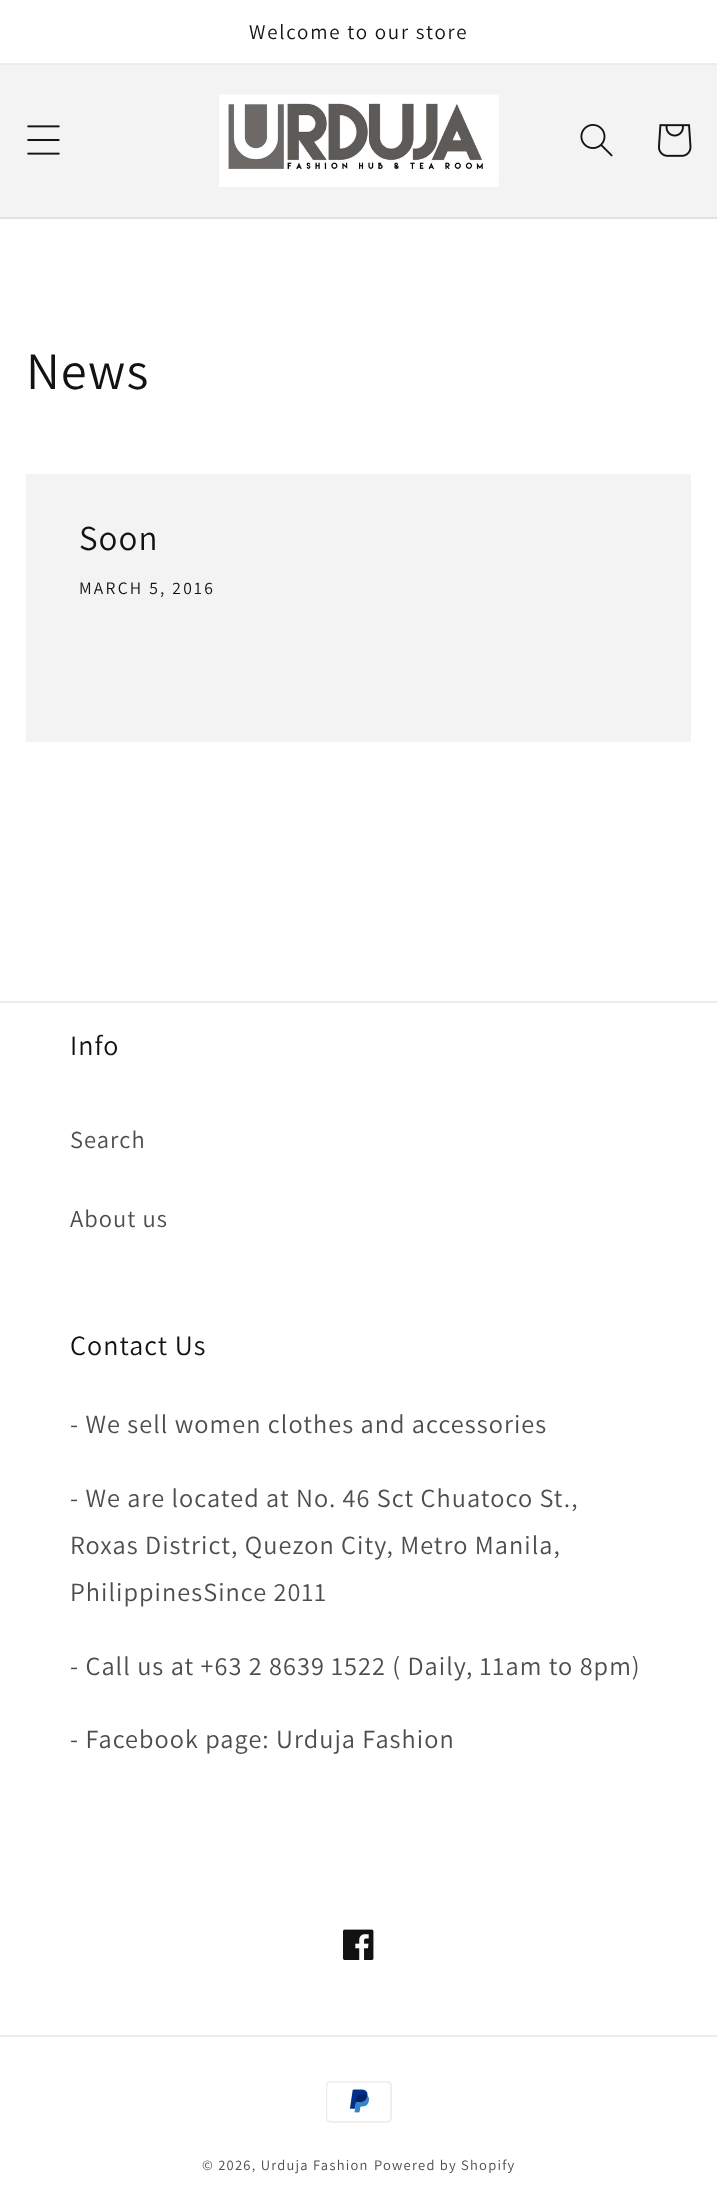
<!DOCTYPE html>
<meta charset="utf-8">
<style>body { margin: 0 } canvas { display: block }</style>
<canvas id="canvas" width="717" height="2194"></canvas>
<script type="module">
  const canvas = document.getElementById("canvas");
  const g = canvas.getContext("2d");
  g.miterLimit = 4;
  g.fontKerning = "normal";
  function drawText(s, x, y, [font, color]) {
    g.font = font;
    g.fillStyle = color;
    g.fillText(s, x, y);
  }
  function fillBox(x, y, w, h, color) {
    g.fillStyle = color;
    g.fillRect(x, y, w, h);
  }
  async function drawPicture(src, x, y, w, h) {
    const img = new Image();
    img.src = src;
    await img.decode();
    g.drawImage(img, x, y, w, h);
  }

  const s1 = ["21px Assistant", "#121212"];
  const s2 = ["52.5px Assistant", "#121212"];
  const s3 = ["35px Assistant", "#121212"];
  const s4 = ["17.5px Assistant", "#121212"];
  const s5 = ["28px Assistant", "#121212"];
  const s6 = ["24.5px Assistant", "#4D4D4D"];
  const s7 = ["26.25px Assistant", "#4D4D4D"];
  const s8 = ["14.5px Assistant", "#4D4D4D"];

  fillBox(0, 0, 717, 2194, "#FFFFFF");
  fillBox(0, 63, 717, 2, "#ECECEC");
  g.letterSpacing = "1.75px";
  drawText("Welcome to our store", 249, 39, s1);
  fillBox(0, 65, 717, 152, "#F3F3F3");
  fillBox(0, 217, 717, 2, "#E1E1E1");
  await drawPicture("pic1.png", 27, 125, 33, 30);
  await drawPicture("pic2.png", 219, 94, 280, 93);
  await drawPicture("pic3.png", 580, 124, 33, 33);
  await drawPicture("pic4.png", 658, 124, 34, 33);
  g.letterSpacing = "1.05px";
  drawText("News", 26, 389, s2);
  fillBox(26, 474, 665, 268, "#F3F3F3");
  drawText("Soon", 79, 550, s3);
  g.letterSpacing = "2.25px";
  drawText("MARCH 5, 2016", 79, 594, s4);
  fillBox(0, 1001, 717, 2, "#ECECEC");
  g.letterSpacing = "1.05px";
  drawText("Info", 70, 1055, s5);
  drawText("Search", 70, 1148, s6);
  drawText("About us", 70, 1227, s6);
  drawText("Contact Us", 70, 1355, s5);
  drawText("- We sell women clothes and accessories", 70, 1433, s7);
  drawText("- We are located at No. 46 Sct Chuatoco St.,", 70, 1507, s7);
  drawText("Roxas District, Quezon City, Metro Manila,", 70, 1554, s7);
  drawText("PhilippinesSince 2011", 70, 1601, s7);
  drawText("- Call us at +63 2 8639 1522 ( Daily, 11am to 8pm)", 70, 1675, s7);
  drawText("- Facebook page: Urduja Fashion", 70, 1748, s7);
  await drawPicture("pic5.png", 343, 1929, 31, 31);
  fillBox(0, 2035, 717, 2, "#ECECEC");
  await drawPicture("pic6.png", 326, 2081, 66, 42);
  g.letterSpacing = "1.25px";
  drawText("© 2026, Urduja Fashion", 202, 2170, s8);
  drawText("Powered by Shopify", 374, 2170, s8);
</script>
